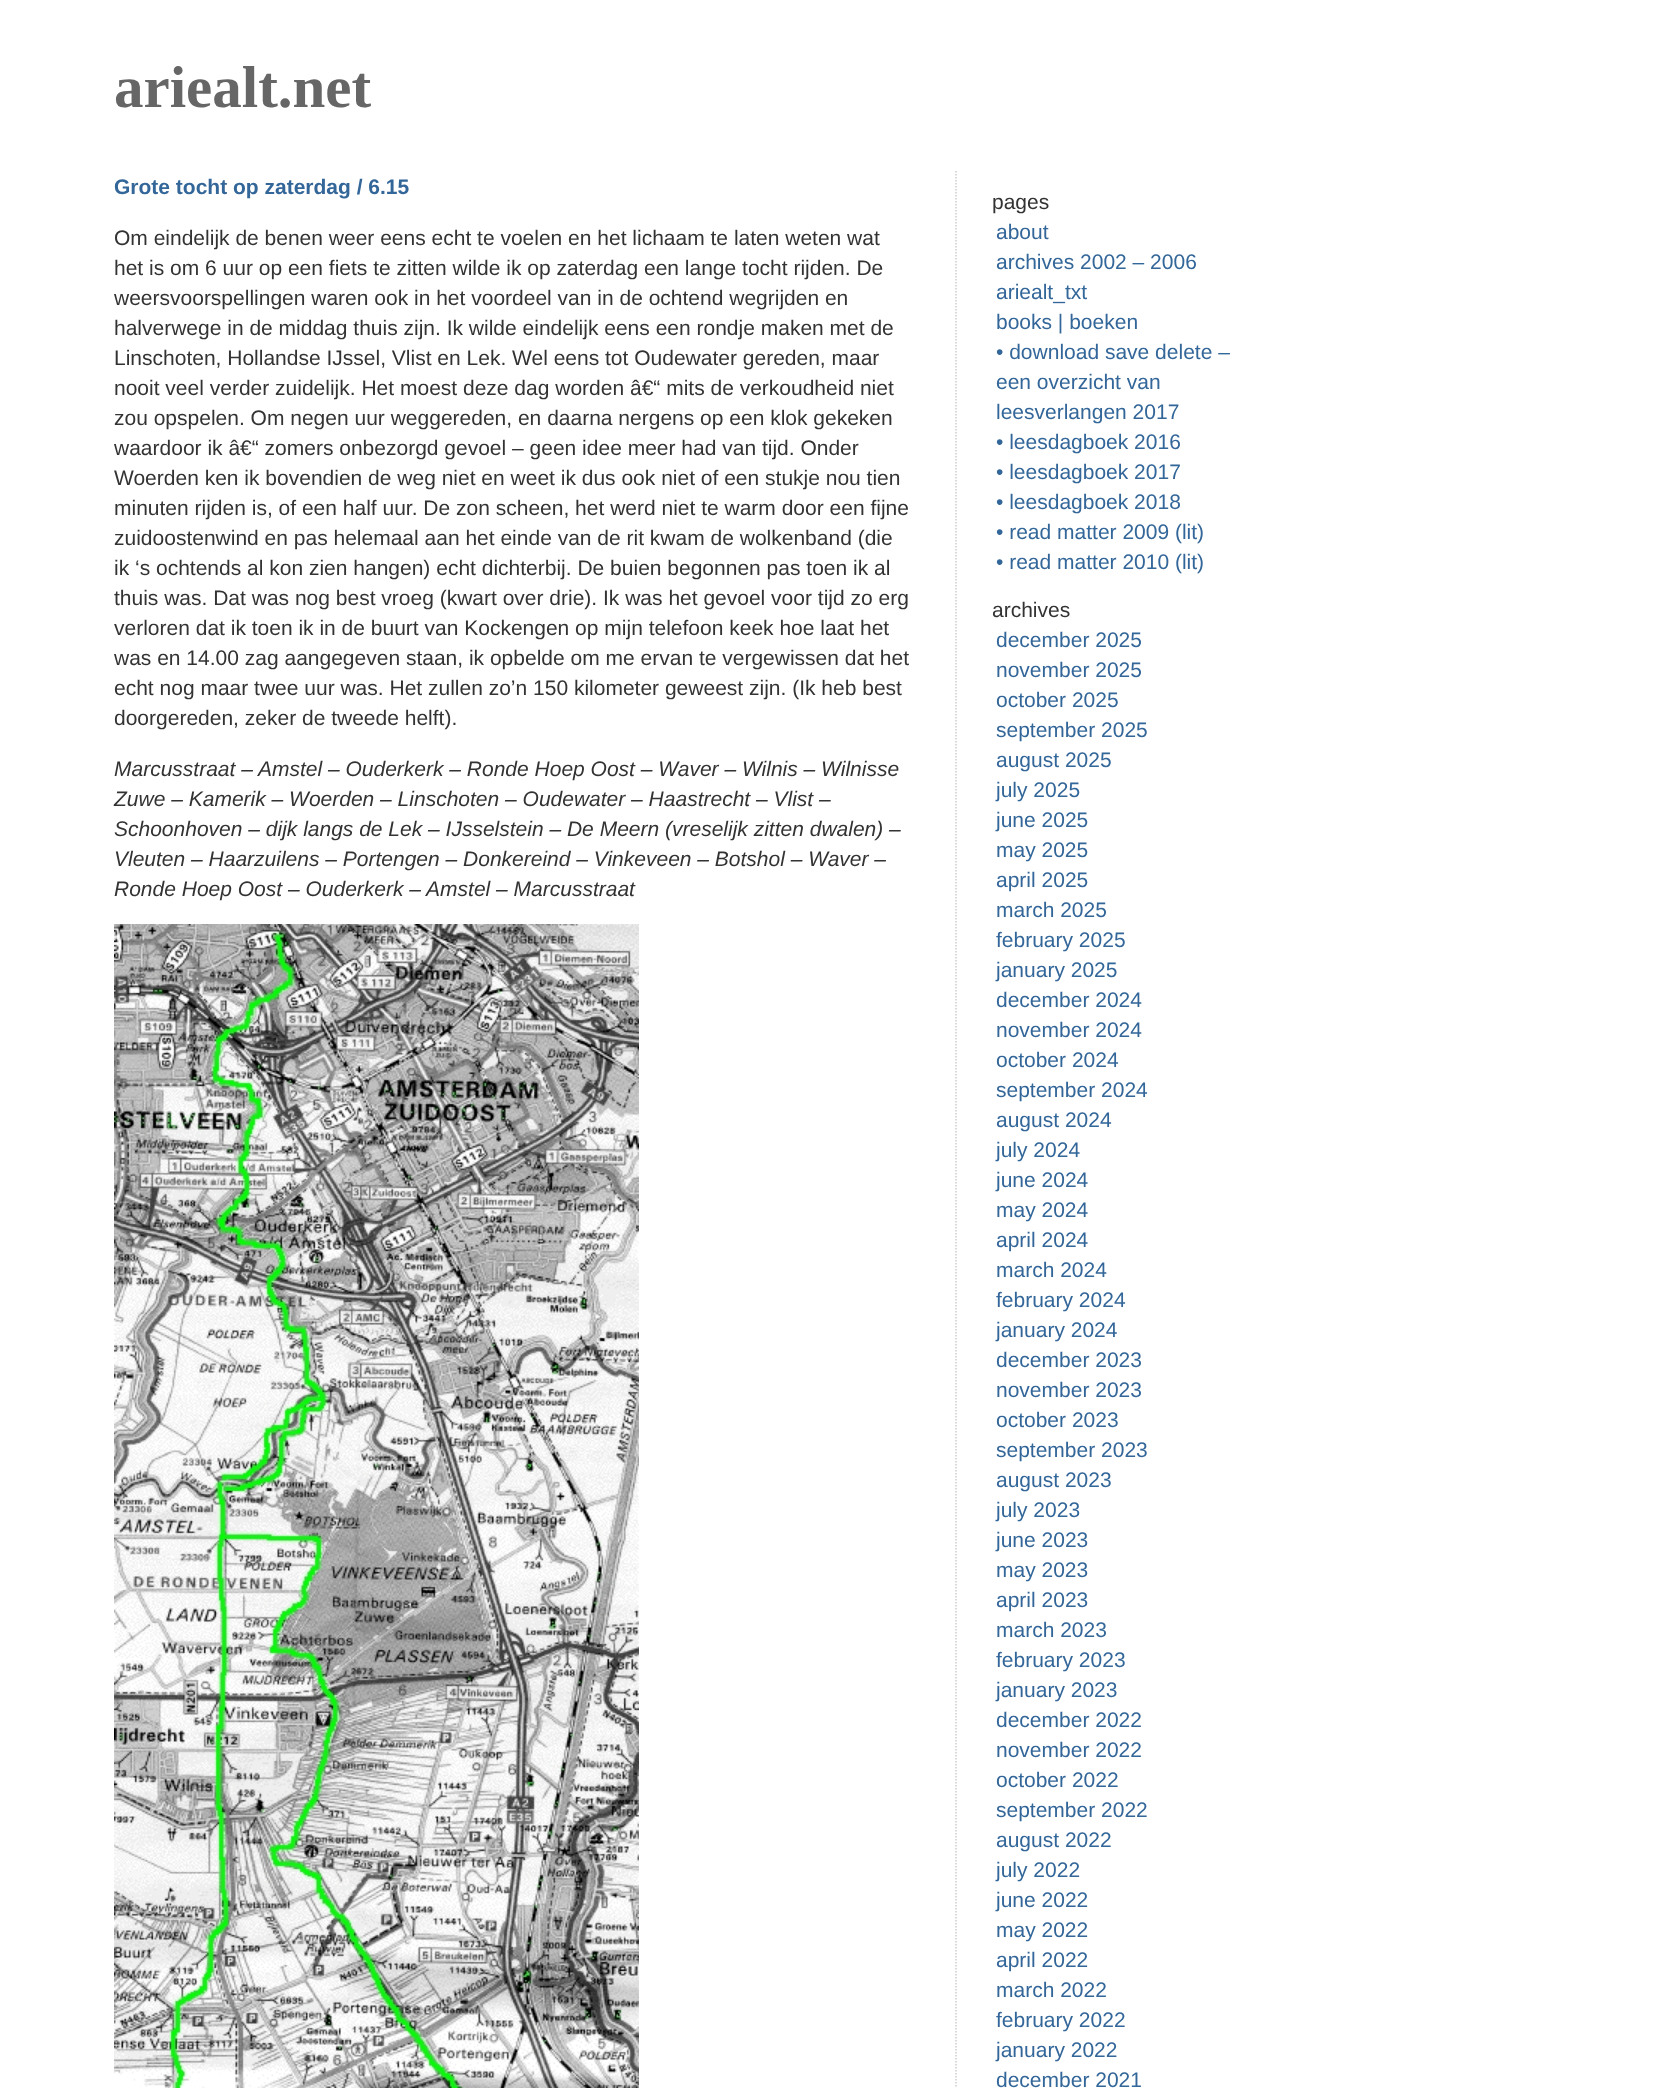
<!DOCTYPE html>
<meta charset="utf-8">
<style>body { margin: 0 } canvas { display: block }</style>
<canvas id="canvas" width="1653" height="2088"></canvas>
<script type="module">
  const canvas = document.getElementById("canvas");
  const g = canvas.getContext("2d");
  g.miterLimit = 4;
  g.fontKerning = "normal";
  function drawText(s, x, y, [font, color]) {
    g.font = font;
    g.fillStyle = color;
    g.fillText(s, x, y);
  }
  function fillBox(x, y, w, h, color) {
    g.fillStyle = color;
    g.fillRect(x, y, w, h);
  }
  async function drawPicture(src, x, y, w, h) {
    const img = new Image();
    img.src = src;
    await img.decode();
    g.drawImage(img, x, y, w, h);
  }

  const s1 = ["bold 59px Liberation Serif", "#666666"];
  const s2 = ["bold 21px Liberation Sans", "#336699"];
  const s3 = ["21px Liberation Sans", "#333333"];
  const s4 = ["italic 21px Liberation Sans", "#333333"];
  const s5 = ["21px Liberation Sans", "#336699"];

  fillBox(0, 0, 1653, 2088, "#FFFFFF");
  drawText("ariealt.net", 114, 107, s1);
  drawText("Grote tocht op zaterdag / 6.15", 114, 194, s2);
  drawText("Om eindelijk de benen weer eens echt te voelen en het lichaam te laten weten wat", 114, 245, s3);
  drawText("het is om 6 uur op een fiets te zitten wilde ik op zaterdag een lange tocht rijden. De", 114, 275, s3);
  drawText("weersvoorspellingen waren ook in het voordeel van in de ochtend wegrijden en", 114, 305, s3);
  drawText("halverwege in de middag thuis zijn. Ik wilde eindelijk eens een rondje maken met de", 114, 335, s3);
  drawText("Linschoten, Hollandse IJssel, Vlist en Lek. Wel eens tot Oudewater gereden, maar", 114, 365, s3);
  drawText("nooit veel verder zuidelijk. Het moest deze dag worden â€“ mits de verkoudheid niet", 114, 395, s3);
  drawText("zou opspelen. Om negen uur weggereden, en daarna nergens op een klok gekeken", 114, 425, s3);
  drawText("waardoor ik â€“ zomers onbezorgd gevoel – geen idee meer had van tijd. Onder", 114, 455, s3);
  drawText("Woerden ken ik bovendien de weg niet en weet ik dus ook niet of een stukje nou tien", 114, 485, s3);
  drawText("minuten rijden is, of een half uur. De zon scheen, het werd niet te warm door een fijne", 114, 515, s3);
  drawText("zuidoostenwind en pas helemaal aan het einde van de rit kwam de wolkenband (die", 114, 545, s3);
  drawText("ik ‘s ochtends al kon zien hangen) echt dichterbij. De buien begonnen pas toen ik al", 114, 575, s3);
  drawText("thuis was. Dat was nog best vroeg (kwart over drie). Ik was het gevoel voor tijd zo erg", 114, 605, s3);
  drawText("verloren dat ik toen ik in de buurt van Kockengen op mijn telefoon keek hoe laat het", 114, 635, s3);
  drawText("was en 14.00 zag aangegeven staan, ik opbelde om me ervan te vergewissen dat het", 114, 665, s3);
  drawText("echt nog maar twee uur was. Het zullen zo’n 150 kilometer geweest zijn. (Ik heb best", 114, 695, s3);
  drawText("doorgereden, zeker de tweede helft).", 114, 725, s3);
  drawText("Marcusstraat – Amstel – Ouderkerk – Ronde Hoep Oost – Waver – Wilnis – Wilnisse", 114, 776, s4);
  drawText("Zuwe – Kamerik – Woerden – Linschoten – Oudewater – Haastrecht – Vlist –", 114, 806, s4);
  drawText("Schoonhoven – dijk langs de Lek – IJsselstein – De Meern (vreselijk zitten dwalen) –", 114, 836, s4);
  drawText("Vleuten – Haarzuilens – Portengen – Donkereind – Vinkeveen – Botshol – Waver –", 114, 866, s4);
  drawText("Ronde Hoep Oost – Ouderkerk – Amstel – Marcusstraat", 114, 896, s4);
  await drawPicture("pic1.png", 114, 924, 525, 1164);
  g.beginPath();
  g.moveTo(956, 171);
  g.lineTo(956, 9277.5);
  g.strokeStyle = "#CCCCCC";
  g.lineWidth = 1.5;
  g.setLineDash([1.5, 1.5]);
  g.stroke();
  drawText("pages", 992, 209, s3);
  drawText("about", 996, 239, s5);
  drawText("archives 2002 – 2006", 996, 269, s5);
  drawText("ariealt_txt", 996, 299, s5);
  drawText("books | boeken", 996, 329, s5);
  drawText("• download save delete –", 996, 359, s5);
  drawText("een overzicht van", 996, 389, s5);
  drawText("leesverlangen 2017", 996, 419, s5);
  drawText("• leesdagboek 2016", 996, 449, s5);
  drawText("• leesdagboek 2017", 996, 479, s5);
  drawText("• leesdagboek 2018", 996, 509, s5);
  drawText("• read matter 2009 (lit)", 996, 539, s5);
  drawText("• read matter 2010 (lit)", 996, 569, s5);
  drawText("archives", 992, 617, s3);
  drawText("december 2025", 996, 647, s5);
  drawText("november 2025", 996, 677, s5);
  drawText("october 2025", 996, 707, s5);
  drawText("september 2025", 996, 737, s5);
  drawText("august 2025", 996, 767, s5);
  drawText("july 2025", 996, 797, s5);
  drawText("june 2025", 996, 827, s5);
  drawText("may 2025", 996, 857, s5);
  drawText("april 2025", 996, 887, s5);
  drawText("march 2025", 996, 917, s5);
  drawText("february 2025", 996, 947, s5);
  drawText("january 2025", 996, 977, s5);
  drawText("december 2024", 996, 1007, s5);
  drawText("november 2024", 996, 1037, s5);
  drawText("october 2024", 996, 1067, s5);
  drawText("september 2024", 996, 1097, s5);
  drawText("august 2024", 996, 1127, s5);
  drawText("july 2024", 996, 1157, s5);
  drawText("june 2024", 996, 1187, s5);
  drawText("may 2024", 996, 1217, s5);
  drawText("april 2024", 996, 1247, s5);
  drawText("march 2024", 996, 1277, s5);
  drawText("february 2024", 996, 1307, s5);
  drawText("january 2024", 996, 1337, s5);
  drawText("december 2023", 996, 1367, s5);
  drawText("november 2023", 996, 1397, s5);
  drawText("october 2023", 996, 1427, s5);
  drawText("september 2023", 996, 1457, s5);
  drawText("august 2023", 996, 1487, s5);
  drawText("july 2023", 996, 1517, s5);
  drawText("june 2023", 996, 1547, s5);
  drawText("may 2023", 996, 1577, s5);
  drawText("april 2023", 996, 1607, s5);
  drawText("march 2023", 996, 1637, s5);
  drawText("february 2023", 996, 1667, s5);
  drawText("january 2023", 996, 1697, s5);
  drawText("december 2022", 996, 1727, s5);
  drawText("november 2022", 996, 1757, s5);
  drawText("october 2022", 996, 1787, s5);
  drawText("september 2022", 996, 1817, s5);
  drawText("august 2022", 996, 1847, s5);
  drawText("july 2022", 996, 1877, s5);
  drawText("june 2022", 996, 1907, s5);
  drawText("may 2022", 996, 1937, s5);
  drawText("april 2022", 996, 1967, s5);
  drawText("march 2022", 996, 1997, s5);
  drawText("february 2022", 996, 2027, s5);
  drawText("january 2022", 996, 2057, s5);
  drawText("december 2021", 996, 2087, s5);
</script>
